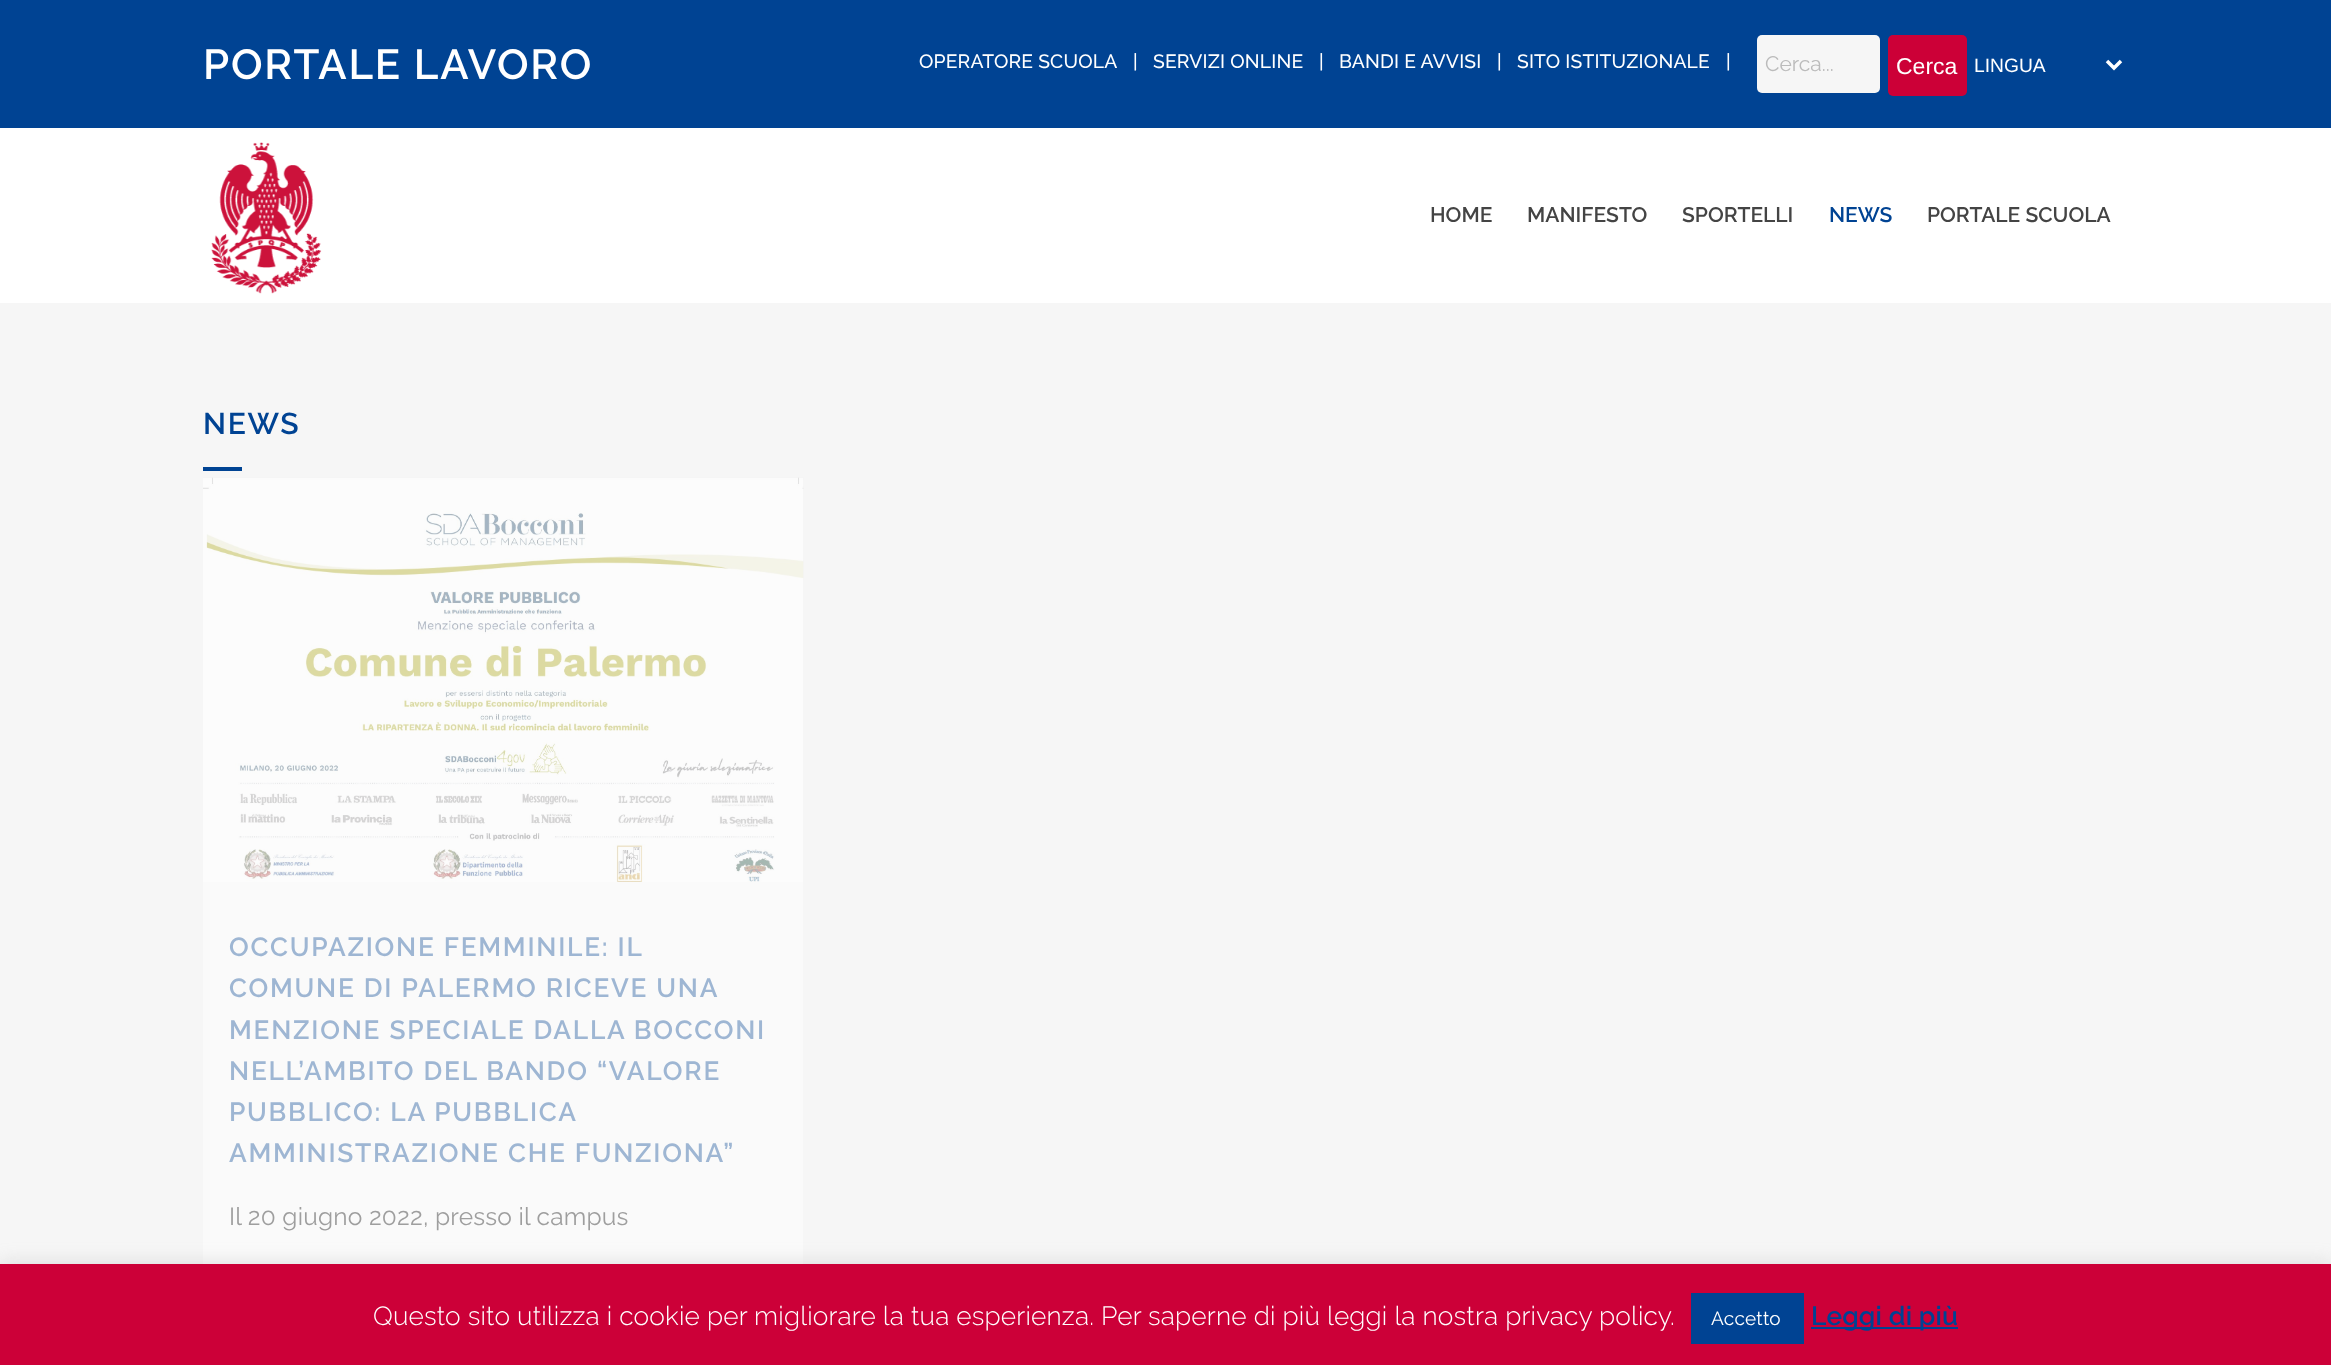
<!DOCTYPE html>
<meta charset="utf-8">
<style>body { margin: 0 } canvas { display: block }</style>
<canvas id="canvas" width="2331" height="1365"></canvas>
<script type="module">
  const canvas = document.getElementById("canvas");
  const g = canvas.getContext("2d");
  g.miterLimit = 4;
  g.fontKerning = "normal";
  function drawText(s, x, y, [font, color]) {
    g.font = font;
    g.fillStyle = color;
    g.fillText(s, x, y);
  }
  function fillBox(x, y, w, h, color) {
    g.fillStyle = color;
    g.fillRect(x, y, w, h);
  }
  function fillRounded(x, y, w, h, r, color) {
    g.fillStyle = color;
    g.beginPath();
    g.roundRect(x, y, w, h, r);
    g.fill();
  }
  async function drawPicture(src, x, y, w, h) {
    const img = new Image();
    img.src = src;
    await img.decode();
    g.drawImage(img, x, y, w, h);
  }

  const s1 = ["600 42px Raleway", "#FFFFFF"];
  const s2 = ["500 19.25px Raleway", "#FFFFFF"];
  const s3 = ["21px Raleway", "#BBBBBB"];
  const s4 = ["23px Liberation Sans", "#FFFFFF"];
  const s5 = ["19.25px Liberation Sans", "#FFFFFF"];
  const s6 = ["600 21px Raleway", "#444444"];
  const s7 = ["600 21px Raleway", "#004393"];
  const s8 = ["600 30px Raleway", "#004393"];
  const s9 = ["600 26.25px Raleway", "#9EB6D3"];
  const s10 = ["24.5px Raleway", "#9E9E9E"];
  const s11 = ["300 26.25px Raleway", "#FFFFFF"];
  const s12 = ["19px Raleway", "#FFFFFF"];
  const s13 = ["600 26.25px Raleway", "#004393"];

  fillBox(0, 0, 2331, 1365, "#F6F6F6");
  fillBox(0, 0, 2331, 128, "#004393");
  g.letterSpacing = "1.75px";
  drawText("PORTALE LAVORO", 203, 79, s1);
  g.letterSpacing = "0.18px";
  drawText("OPERATORE SCUOLA", 919, 68, s2);
  drawText("|", 1133, 68, s2);
  drawText("SERVIZI ONLINE", 1153, 68, s2);
  drawText("|", 1319, 68, s2);
  drawText("BANDI E AVVISI", 1339, 68, s2);
  drawText("|", 1497, 68, s2);
  drawText("SITO ISTITUZIONALE", 1517, 68, s2);
  drawText("|", 1726, 68, s2);
  fillRounded(1757, 35, 123, 58, 5, "#F6F6F6");
  g.letterSpacing = "0px";
  drawText("Cerca...", 1765, 71, s3);
  fillRounded(1888, 35, 79, 61, 5, "#CC0037");
  drawText("Cerca", 1896, 74, s4);
  g.beginPath();
  g.moveTo(2107, 61);
  g.lineTo(2114, 68);
  g.lineTo(2121, 61);
  g.strokeStyle = "#FFFFFF";
  g.lineWidth = 3.5;
  g.stroke();
  drawText("LINGUA", 1974, 72, s5);
  fillBox(0, 128, 2331, 175, "#FFFFFF");
  await drawPicture("pic1.png", 211, 142, 111, 152);
  drawText("HOME", 1430, 222, s6);
  drawText("MANIFESTO", 1527, 222, s6);
  drawText("SPORTELLI", 1682, 222, s6);
  drawText("NEWS", 1829, 222, s7);
  drawText("PORTALE SCUOLA", 1927, 222, s6);
  g.letterSpacing = "1.75px";
  drawText("NEWS", 203, 434, s8);
  fillBox(203, 467, 39, 4, "#004393");
  fillBox(203, 478, 600, 786, "#FAFAFA");
  await drawPicture("pic2.png", 203, 477, 601, 405);
  drawText("OCCUPAZIONE FEMMINILE: IL", 229, 956, s9);
  drawText("COMUNE DI PALERMO RICEVE UNA", 229, 997, s9);
  drawText("MENZIONE SPECIALE DALLA BOCCONI", 229, 1039, s9);
  drawText("NELL’AMBITO DEL BANDO “VALORE", 229, 1080, s9);
  drawText("PUBBLICO: LA PUBBLICA", 229, 1121, s9);
  drawText("AMMINISTRAZIONE CHE FUNZIONA”", 229, 1162, s9);
  g.letterSpacing = "0.18px";
  drawText("Il 20 giugno 2022, presso il campus", 229, 1225, s10);
  g.fillStyle = "rgba(172, 171, 171, 0.3)";
  g.filter = "blur(9px)";
  g.beginPath();
  g.rect(0, 1262, 2331, 101);
  g.fill();
  g.filter = "none";
  fillBox(0, 1264, 2331, 101, "#CC0038");
  drawText("Questo sito utilizza i cookie per migliorare la tua esperienza. Per saperne di più leggi la nostra privacy policy.", 373, 1325, s11);
  fillBox(1691, 1293, 113, 51, "#004393");
  g.letterSpacing = "0.25px";
  drawText("Accetto", 1711, 1325, s12);
  fillBox(1811, 1327, 147, 2, "#004393");
  g.letterSpacing = "0.18px";
  drawText("Leggi di più", 1811, 1325, s13);
</script>
